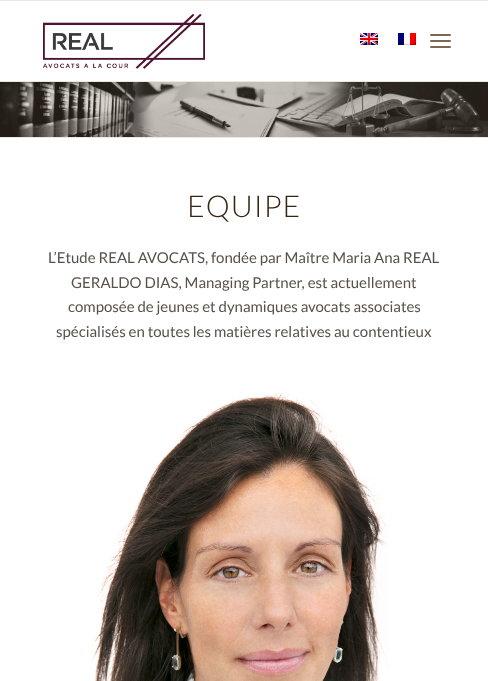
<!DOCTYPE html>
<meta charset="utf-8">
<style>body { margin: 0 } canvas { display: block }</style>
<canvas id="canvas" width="488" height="681"></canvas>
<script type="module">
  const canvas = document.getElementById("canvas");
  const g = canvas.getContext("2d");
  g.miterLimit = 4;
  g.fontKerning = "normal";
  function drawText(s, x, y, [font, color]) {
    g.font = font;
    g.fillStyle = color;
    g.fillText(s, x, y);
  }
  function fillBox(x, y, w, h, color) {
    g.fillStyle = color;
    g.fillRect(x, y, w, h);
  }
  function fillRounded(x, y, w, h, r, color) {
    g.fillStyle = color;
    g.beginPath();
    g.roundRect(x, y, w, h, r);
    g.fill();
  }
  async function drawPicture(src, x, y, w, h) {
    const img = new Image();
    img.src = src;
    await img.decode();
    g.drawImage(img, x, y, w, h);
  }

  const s1 = ["300 30px Lato", "#382410"];
  const s2 = ["15px Lato", "#595149"];

  fillBox(0, 0, 488, 681, "#FFFFFF");
  fillBox(0, 0, 488, 1, "#EBE8E2");
  fillBox(0, 81, 488, 1, "#EBE8E2");
  await drawPicture("pic1.png", 43, 13, 162, 56);
  await drawPicture("pic2.png", 360, 33, 18, 12);
  await drawPicture("pic3.png", 398, 33, 18, 12);
  fillRounded(430, 40, 21, 2, 1, "#7C6853");
  fillRounded(430, 34, 21, 2, 1, "#7C6853");
  fillRounded(430, 46, 21, 2, 1, "#7C6853");
  await drawPicture("pic4.png", 0, 82, 488, 55);
  fillBox(0, 137, 488, 1, "#EBE8E2");
  g.letterSpacing = "1px";
  drawText("EQUIPE", 187, 217, s1);
  g.letterSpacing = "0px";
  drawText("L’Etude REAL AVOCATS, fondée par Maître Maria Ana REAL", 48, 263, s2);
  drawText("GERALDO DIAS, Managing Partner, est actuellement", 71, 288, s2);
  drawText("composée de jeunes et dynamiques avocats associates", 68, 312, s2);
  drawText("spécialisés en toutes les matières relatives au contentieux", 56, 337, s2);
  await drawPicture("pic5.png", 80, 392, 309, 289);
</script>
